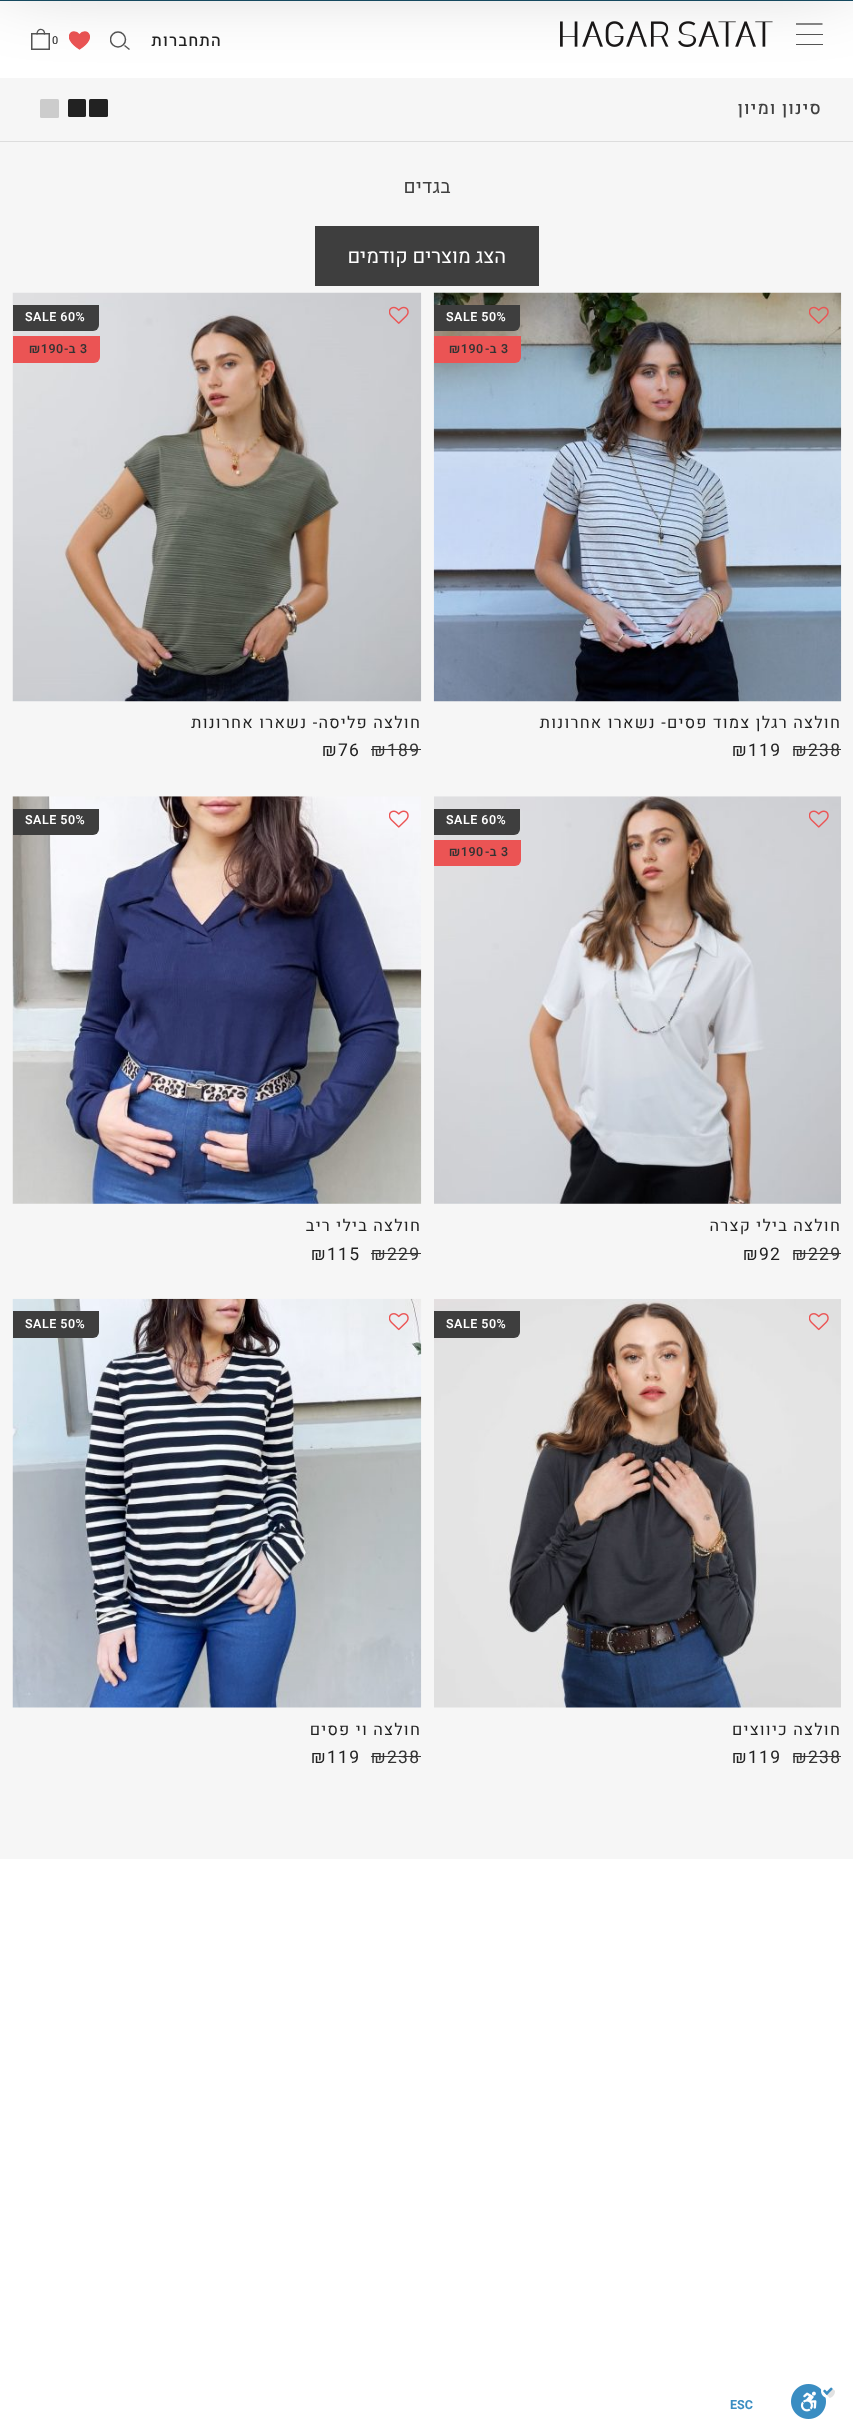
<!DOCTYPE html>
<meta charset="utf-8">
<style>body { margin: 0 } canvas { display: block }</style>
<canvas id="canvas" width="853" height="2432"></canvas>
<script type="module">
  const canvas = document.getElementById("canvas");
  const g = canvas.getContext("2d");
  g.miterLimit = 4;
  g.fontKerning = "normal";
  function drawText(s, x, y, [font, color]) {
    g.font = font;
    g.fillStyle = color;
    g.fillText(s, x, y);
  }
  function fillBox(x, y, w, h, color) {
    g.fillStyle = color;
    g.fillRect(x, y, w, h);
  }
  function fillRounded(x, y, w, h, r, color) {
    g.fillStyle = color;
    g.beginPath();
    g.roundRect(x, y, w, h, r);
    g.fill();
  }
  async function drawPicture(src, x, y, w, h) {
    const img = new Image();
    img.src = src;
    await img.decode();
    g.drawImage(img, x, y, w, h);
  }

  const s1 = ["500 16.25px Heebo", "#222222"];
  const s2 = ["500 11px Heebo", "#333333"];
  const s3 = ["500 17.5px Heebo", "#404040"];
  const s4 = ["19px Heebo", "#404040"];
  const s5 = ["20px Heebo", "#FFFFFF"];
  const s6 = ["600 12.5px Heebo", "#FFFFFF"];
  const s7 = ["600 12.5px Heebo", "#333333"];
  const s8 = ["16.25px Heebo", "#222222"];
  const s9 = ["17.5px Heebo", "#333333"];
  const s10 = ["17.5px Heebo", "#222222"];
  const s11 = ["bold 12.5px Heebo", "#3A8DC2"];

  fillBox(0, 0, 853, 2432, "#FFFFFF");
  g.beginPath();
  g.moveTo(796, 24);
  g.lineTo(822.5, 24);
  g.strokeStyle = "#555555";
  g.lineWidth = 1.4;
  g.stroke();
  fillBox(796, 34, 27, 1, "#555555");
  fillBox(796, 44, 27, 1, "#555555");
  await drawPicture("pic1.png", 560, 21, 213, 26);
  g.save();
  g.beginPath();
  g.rect(110, 31, 20, 19);
  g.clip();
  g.beginPath();
  g.arc(118, 39.5, 7.5, 0, Math.PI * 2);
  g.lineWidth = 1.5;
  g.stroke();
  g.restore();
  g.beginPath();
  g.moveTo(124.5, 45.5);
  g.lineTo(129.5, 49.5);
  g.lineWidth = 1.5;
  g.stroke();
  g.fillStyle = "#EB5454";
  g.beginPath();
  g.moveTo(79.5, 49);
  g.bezierCurveTo(61, 37.5, 72.5, 26.5, 79.5, 35);
  g.bezierCurveTo(86, 26.5, 98, 37.5, 79.5, 49);
  g.closePath();
  g.fill();
  g.save();
  g.beginPath();
  g.rect(69, 31, 21, 19);
  g.clip();
  g.beginPath();
  g.moveTo(79.5, 49);
  g.bezierCurveTo(61, 37.5, 72.5, 26.5, 79.5, 35);
  g.bezierCurveTo(86, 26.5, 98, 37.5, 79.5, 49);
  g.closePath();
  g.strokeStyle = "#EB5454";
  g.lineWidth = 1.4;
  g.stroke();
  g.restore();
  g.strokeRect(31.75, 33.75, 17.5, 15.5);
  g.beginPath();
  g.moveTo(37, 34.5);
  g.bezierCurveTo(36.5, 27.5, 45.5, 28, 44.5, 34.5);
  g.lineWidth = 1.3;
  g.stroke();
  fillBox(0, 78, 853, 1781, "#F6F6F6");
  g.fillStyle = "rgba(0, 0, 0, 0.31)";
  g.filter = "blur(44px)";
  g.beginPath();
  g.rect(0, -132, 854, 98);
  g.fill();
  g.filter = "none";
  g.letterSpacing = "1.25px";
  g.direction = "rtl";
  drawText("התחברות", 222, 46, s1);
  g.letterSpacing = "0px";
  g.direction = "ltr";
  drawText("0", 52, 44, s2);
  fillBox(0, 141, 853, 1, "#DDDDDD");
  g.letterSpacing = "1.25px";
  g.direction = "rtl";
  drawText("סינון ומיון", 822, 114, s3);
  fillRounded(89, 99, 19, 18, 1.5, "#222222");
  fillRounded(68, 99, 18, 18, 1.5, "#222222");
  fillRounded(40, 99, 19, 19, 1.5, "#CCCCCC");
  g.letterSpacing = "0.5px";
  drawText("בגדים", 451, 193, s4);
  fillBox(315, 226, 224, 60, "#3E3E3E");
  g.letterSpacing = "0px";
  drawText("הצג מוצרים קודמים", 506, 263, s5);
  await drawPicture("pic3.png", 433, 292, 409, 410);
  await drawPicture("pic2.png", 809, 306, 20, 18);
  g.fillStyle = "#3E3E3E";
  g.beginPath();
  g.roundRect(434, 305, 86, 26, [0, 0, 6, 0]);
  g.fill();
  g.letterSpacing = "0.5px";
  g.direction = "ltr";
  drawText("SALE 50%", 446, 321, s6);
  g.fillStyle = "#EB5454";
  g.beginPath();
  g.roundRect(434, 336, 87, 27, [0, 0, 6, 0]);
  g.fill();
  drawText("3", 501, 353, s7);
  g.direction = "rtl";
  drawText("ב-", 497, 353, s7);
  g.direction = "ltr";
  drawText("₪190", 449, 353, s7);
  g.letterSpacing = "1.25px";
  g.direction = "rtl";
  drawText("חולצה רגלן צמוד פסים- נשארו אחרונות", 841, 728, s8);
  g.direction = "ltr";
  drawText("₪238", 792, 756, s9);
  fillBox(793, 749, 48, 1, "#333333");
  drawText("₪119", 732, 756, s10);
  await drawPicture("pic5.png", 12, 292, 410, 410);
  await drawPicture("pic4.png", 389, 306, 20, 18);
  g.fillStyle = "#3E3E3E";
  g.beginPath();
  g.roundRect(13, 305, 86, 26, [0, 0, 6, 0]);
  g.fill();
  g.letterSpacing = "0.5px";
  drawText("SALE 60%", 25, 321, s6);
  g.fillStyle = "#EB5454";
  g.beginPath();
  g.roundRect(13, 336, 87, 27, [0, 0, 6, 0]);
  g.fill();
  drawText("3", 80, 353, s7);
  g.direction = "rtl";
  drawText("ב-", 76, 353, s7);
  g.direction = "ltr";
  drawText("₪190", 29, 353, s7);
  g.letterSpacing = "1.25px";
  g.direction = "rtl";
  drawText("חולצה", 421, 728, s8);
  drawText("פליסה- נשארו אחרונות", 368, 728, s8);
  g.direction = "ltr";
  drawText("₪189", 371, 756, s9);
  fillBox(371, 749, 50, 1, "#333333");
  drawText("₪76", 322, 756, s10);
  await drawPicture("pic7.png", 434, 796, 407, 408);
  await drawPicture("pic6.png", 809, 810, 20, 18);
  g.fillStyle = "#3E3E3E";
  g.beginPath();
  g.roundRect(434, 809, 86, 26, [0, 0, 6, 0]);
  g.fill();
  g.letterSpacing = "0.5px";
  drawText("SALE 60%", 446, 824, s6);
  g.fillStyle = "#EB5454";
  g.beginPath();
  g.roundRect(434, 840, 87, 26, [0, 0, 6, 0]);
  g.fill();
  drawText("3", 501, 856, s7);
  g.direction = "rtl";
  drawText("ב-", 497, 856, s7);
  g.direction = "ltr";
  drawText("₪190", 449, 856, s7);
  g.letterSpacing = "1.25px";
  g.direction = "rtl";
  drawText("חולצה בילי קצרה", 841, 1231, s8);
  g.direction = "ltr";
  drawText("₪229", 792, 1260, s9);
  fillBox(793, 1253, 48, 1, "#333333");
  drawText("₪92", 743, 1260, s10);
  await drawPicture("pic9.png", 12, 796, 410, 408);
  await drawPicture("pic8.png", 389, 810, 20, 18);
  g.fillStyle = "#3E3E3E";
  g.beginPath();
  g.roundRect(13, 809, 86, 26, [0, 0, 6, 0]);
  g.fill();
  g.letterSpacing = "0.5px";
  drawText("SALE 50%", 25, 824, s6);
  g.letterSpacing = "1.25px";
  g.direction = "rtl";
  drawText("חולצה בילי ריב", 421, 1231, s8);
  g.direction = "ltr";
  drawText("₪229", 371, 1260, s9);
  fillBox(371, 1253, 50, 1, "#333333");
  drawText("₪115", 311, 1260, s10);
  await drawPicture("pic11.png", 434, 1299, 407, 409);
  await drawPicture("pic10.png", 809, 1313, 20, 18);
  g.fillStyle = "#3E3E3E";
  g.beginPath();
  g.roundRect(434, 1311, 86, 27, [0, 0, 6, 0]);
  g.fill();
  g.letterSpacing = "0.5px";
  drawText("SALE 50%", 446, 1328, s6);
  g.letterSpacing = "1.25px";
  g.direction = "rtl";
  drawText("חולצה כיווצים", 841, 1735, s8);
  g.direction = "ltr";
  drawText("₪238", 792, 1763, s9);
  fillBox(793, 1756, 48, 1, "#333333");
  drawText("₪119", 732, 1763, s10);
  await drawPicture("pic13.png", 12, 1298, 410, 410);
  await drawPicture("pic12.png", 389, 1313, 20, 18);
  g.fillStyle = "#3E3E3E";
  g.beginPath();
  g.roundRect(13, 1311, 86, 27, [0, 0, 6, 0]);
  g.fill();
  g.letterSpacing = "0.5px";
  drawText("SALE 50%", 25, 1328, s6);
  g.letterSpacing = "1.25px";
  g.direction = "rtl";
  drawText("חולצה וי פסים", 421, 1735, s8);
  g.direction = "ltr";
  drawText("₪238", 371, 1763, s9);
  fillBox(371, 1756, 50, 1, "#333333");
  drawText("₪119", 311, 1763, s10);
  fillBox(0, 0, 853, 1, "#15495F");
  await drawPicture("pic14.png", 791, 2384, 44, 35);
  g.letterSpacing = "0px";
  drawText("ESC", 730, 2409, s11);
</script>
